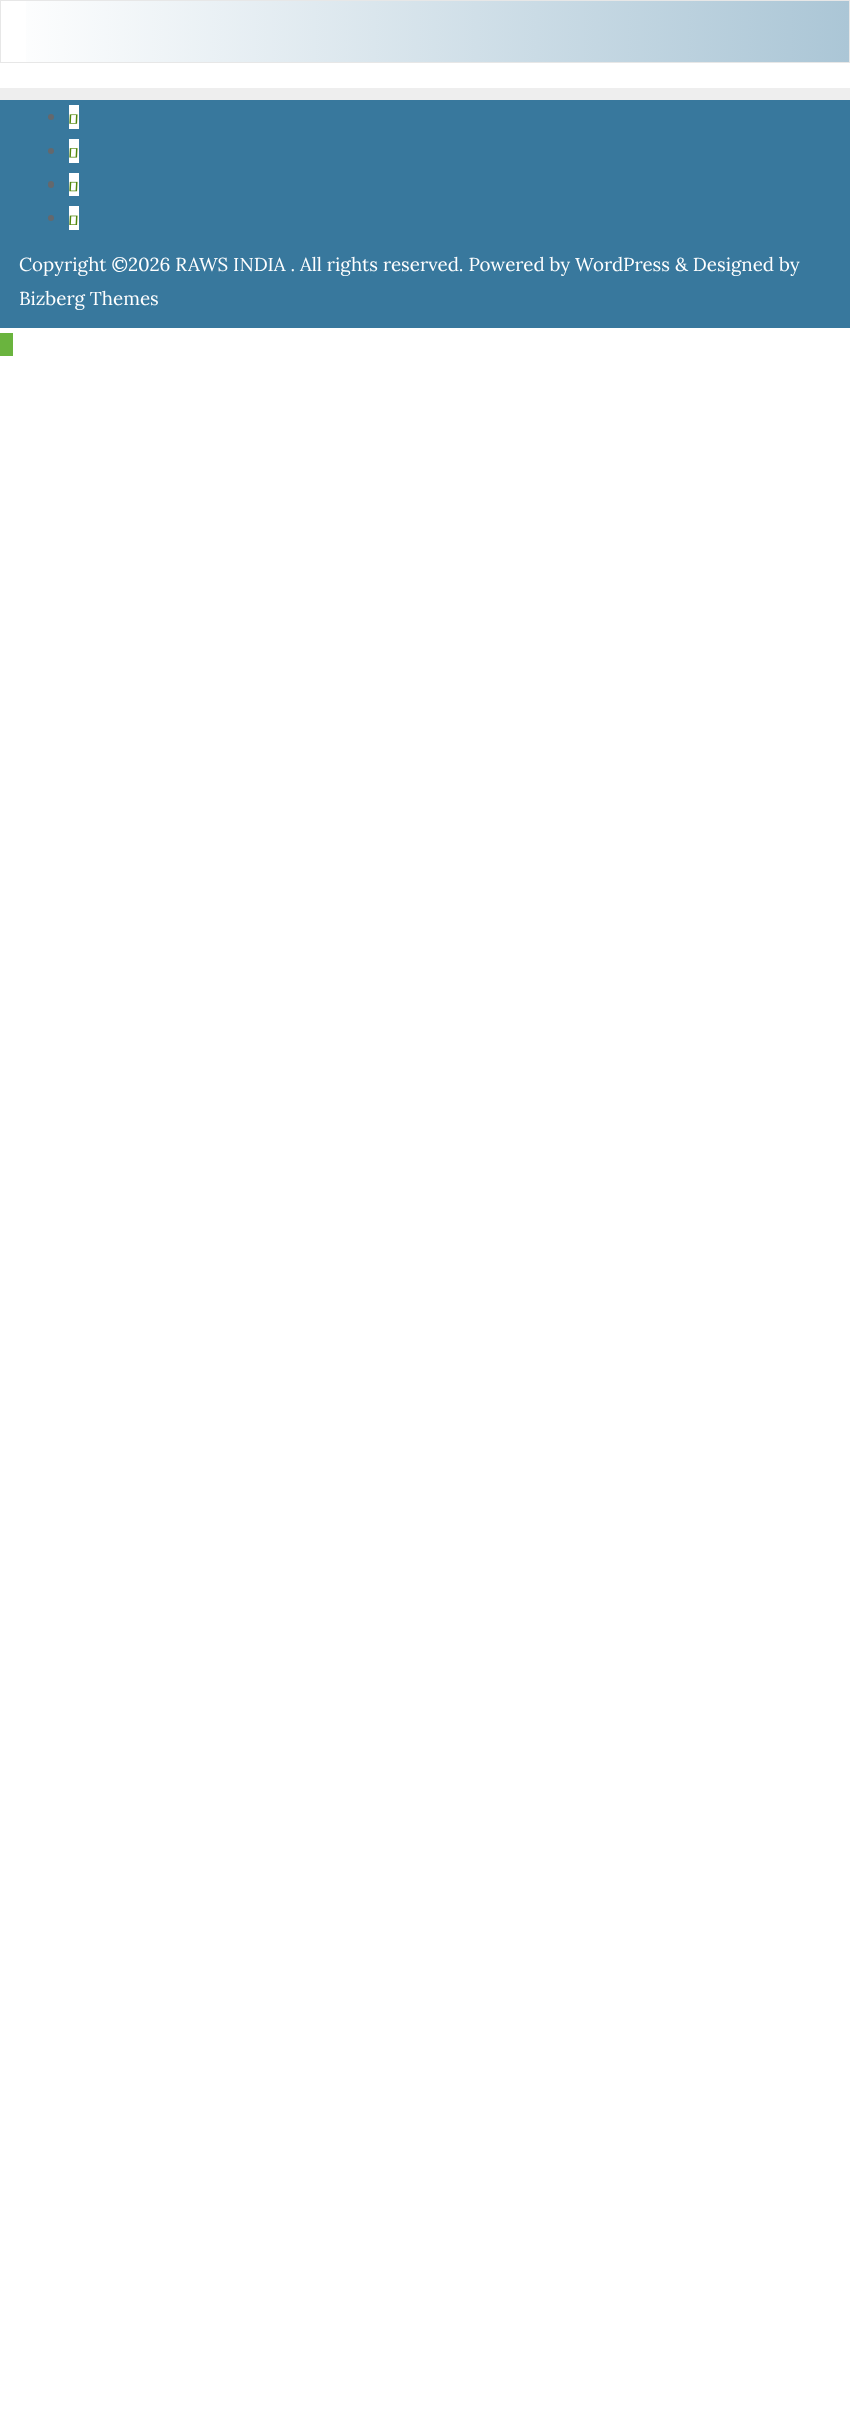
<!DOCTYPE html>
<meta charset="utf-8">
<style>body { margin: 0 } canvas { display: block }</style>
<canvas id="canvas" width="850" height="2409"></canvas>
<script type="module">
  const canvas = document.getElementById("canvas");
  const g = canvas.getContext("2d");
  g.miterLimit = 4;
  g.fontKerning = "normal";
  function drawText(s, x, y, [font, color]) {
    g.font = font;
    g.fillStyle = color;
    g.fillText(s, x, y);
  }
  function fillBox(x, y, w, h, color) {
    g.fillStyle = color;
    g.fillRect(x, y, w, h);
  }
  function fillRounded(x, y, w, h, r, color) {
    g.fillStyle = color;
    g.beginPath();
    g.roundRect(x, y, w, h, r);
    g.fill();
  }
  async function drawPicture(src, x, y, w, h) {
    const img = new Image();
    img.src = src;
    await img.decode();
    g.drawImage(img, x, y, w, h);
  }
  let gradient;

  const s1 = ["18.75px Lora", "#FFFFFF"];

  fillBox(0, 0, 850, 2409, "#FFFFFF");
  fillBox(0, 88, 850, 12, "#EEEEEE");
  gradient = g.createLinearGradient(1.2, 31, 849, 31);
  gradient.addColorStop(0, "#FFFFFF");
  gradient.addColorStop(1, "#ABC6D6");
  g.fillStyle = gradient;
  g.fillRect(26, 1, 823, 61);
  g.strokeStyle = "#E7E7E7";
  g.strokeRect(0.5, 0.5, 849, 62);
  fillBox(0, 100, 850, 228, "#38789D");
  g.fillStyle = "#64686D";
  g.beginPath();
  g.arc(51, 117, 3, 0, Math.PI * 2);
  g.fill();
  fillBox(69, 105, 10, 24, "#FFFFFF");
  await drawPicture("pic1.png", 69, 114, 9, 10);
  g.fillStyle = "#64686D";
  g.beginPath();
  g.arc(51, 151, 3, 0, Math.PI * 2);
  g.fill();
  fillBox(69, 139, 10, 24, "#FFFFFF");
  await drawPicture("pic2.png", 69, 148, 9, 10);
  fillRounded(48, 181, 6, 7, 3, "#64686D");
  fillBox(69, 173, 10, 23, "#FFFFFF");
  await drawPicture("pic3.png", 69, 181, 9, 11);
  g.fillStyle = "#64686D";
  g.beginPath();
  g.arc(51, 218, 3, 0, Math.PI * 2);
  g.fill();
  fillBox(69, 206, 10, 24, "#FFFFFF");
  await drawPicture("pic4.png", 69, 215, 9, 10);
  drawText("Copyright ©2026 RAWS INDIA . All rights reserved. Powered by WordPress & Designed by", 19, 271, s1);
  drawText("Bizberg Themes", 19, 305, s1);
  fillBox(0, 333, 13, 23, "#6AB43E");
</script>
